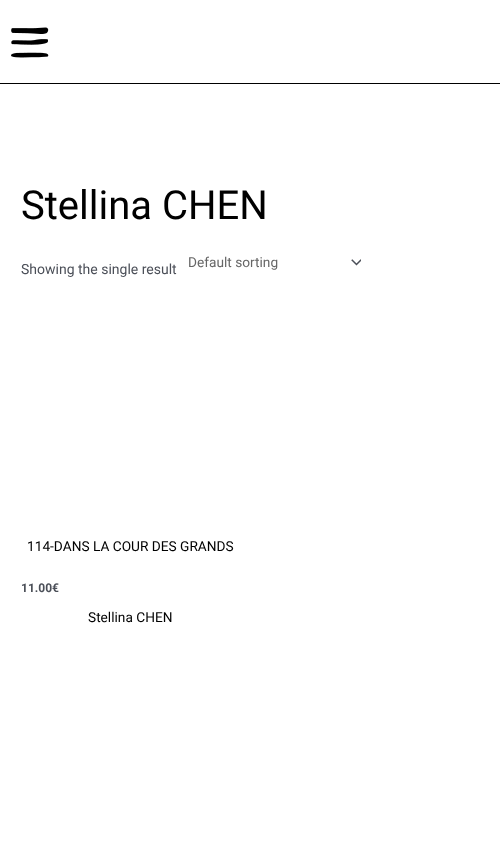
<!DOCTYPE html>
<meta charset="utf-8">
<style>body { margin: 0 } canvas { display: block }</style>
<canvas id="canvas" width="500" height="852"></canvas>
<script type="module">
  const canvas = document.getElementById("canvas");
  const g = canvas.getContext("2d");
  g.miterLimit = 4;
  g.fontKerning = "normal";
  function drawText(s, x, y, [font, color]) {
    g.font = font;
    g.fillStyle = color;
    g.fillText(s, x, y);
  }
  function fillBox(x, y, w, h, color) {
    g.fillStyle = color;
    g.fillRect(x, y, w, h);
  }
  async function drawPicture(src, x, y, w, h) {
    const img = new Image();
    img.src = src;
    await img.decode();
    g.drawImage(img, x, y, w, h);
  }

  const s1 = ["40px Roboto", "#000000"];
  const s2 = ["14px Roboto", "#4B4F58"];
  const s3 = ["13.7px Roboto", "#666666"];
  const s4 = ["13.7px Roboto", "#000000"];
  const s5 = ["bold 12px Roboto", "#4B4F58"];

  fillBox(0, 0, 500, 852, "#FFFFFF");
  fillBox(0, 83, 500, 1, "#000000");
  await drawPicture("pic1.png", 11, 27, 38, 31);
  drawText("Stellina CHEN", 21, 219, s1);
  drawText("Showing the single result", 21, 274, s2);
  await drawPicture("pic2.png", 351, 259, 10, 7);
  drawText("Default sorting", 188, 267, s3);
  drawText("114-DANS LA COUR DES GRANDS", 27, 551, s4);
  drawText("11.00€", 21, 592, s5);
  drawText("Stellina CHEN", 88, 622, s4);
</script>
